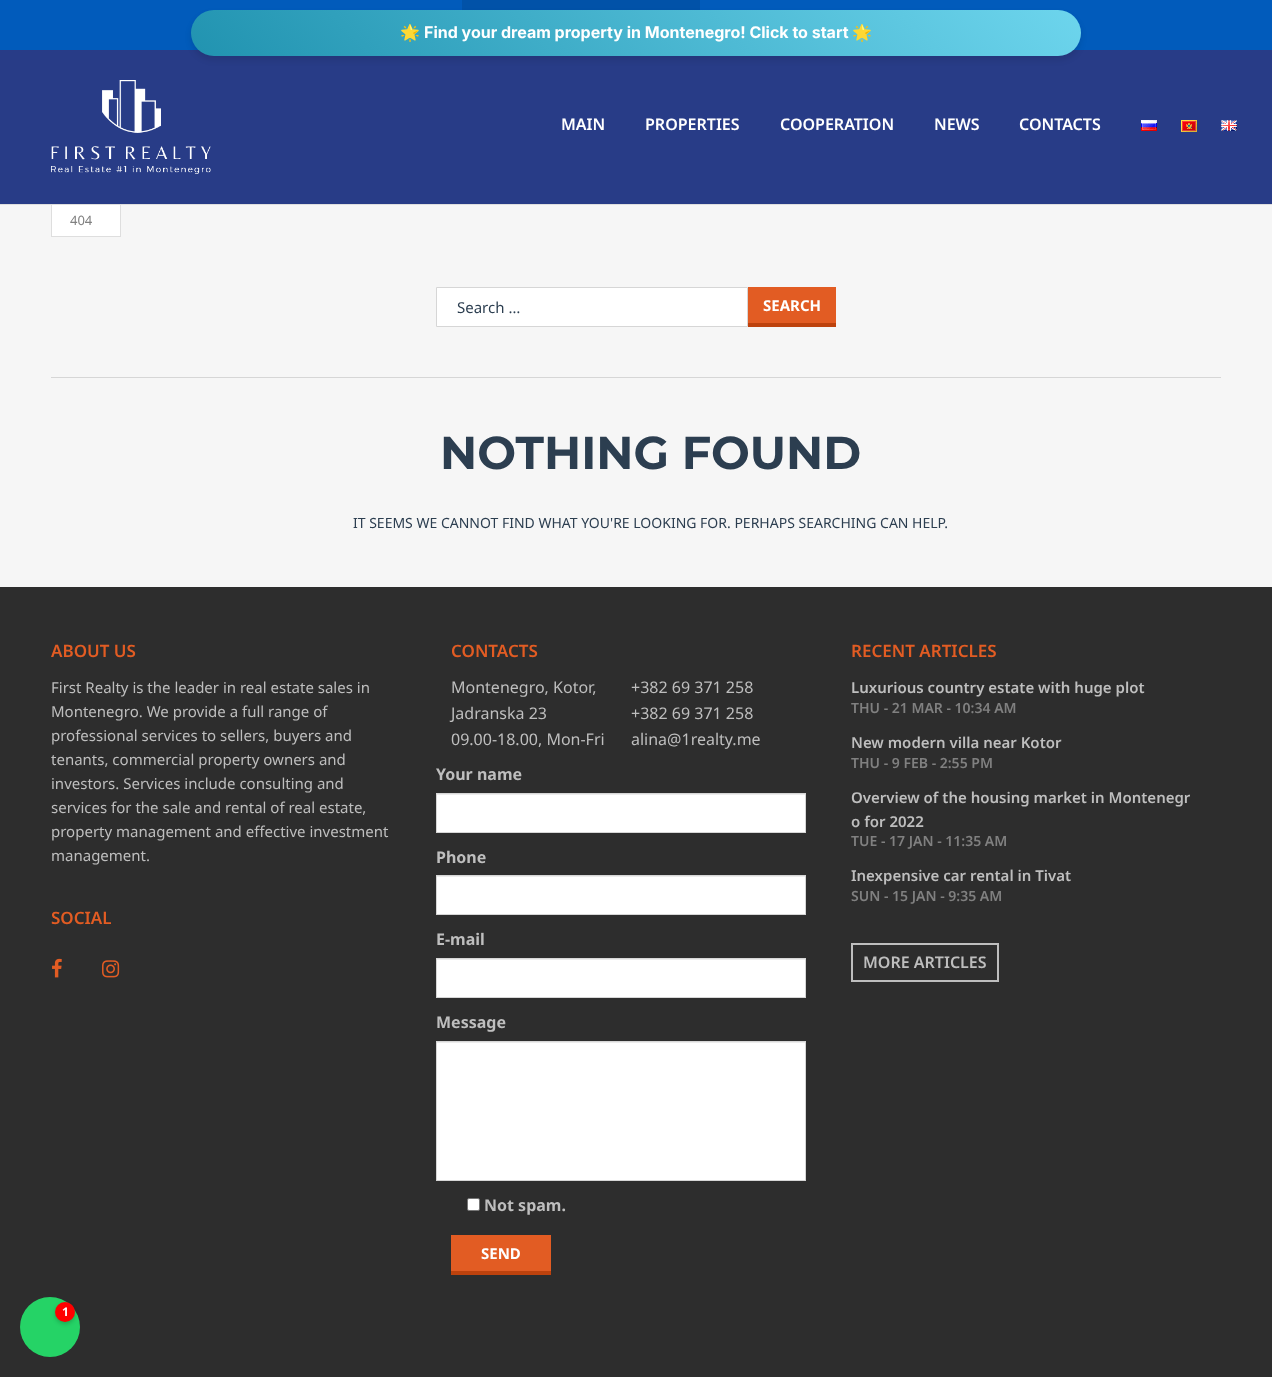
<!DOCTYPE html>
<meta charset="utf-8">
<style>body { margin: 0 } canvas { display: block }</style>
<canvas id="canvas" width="1272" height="1377"></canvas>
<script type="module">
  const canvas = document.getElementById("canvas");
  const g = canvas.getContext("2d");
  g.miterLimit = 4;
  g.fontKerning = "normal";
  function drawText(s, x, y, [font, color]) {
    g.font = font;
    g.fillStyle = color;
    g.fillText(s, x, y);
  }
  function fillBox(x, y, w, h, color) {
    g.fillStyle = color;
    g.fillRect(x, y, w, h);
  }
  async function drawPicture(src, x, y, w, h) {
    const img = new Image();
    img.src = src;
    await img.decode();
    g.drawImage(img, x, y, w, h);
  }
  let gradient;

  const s1 = ["bold 16px Noto Color Emoji", "#FFFFFF"];
  const s2 = ["bold 16px Inter", "#FFFFFF"];
  const s3 = ["600 16px Noto Sans", "#FFFFFF"];
  const s4 = ["13px Noto Sans", "#808080"];
  const s5 = ["15px Noto Sans", "#2C3E50"];
  const s6 = ["bold 15px Noto Sans", "#FFFFFF"];
  const s7 = ["100 46px Montserrat", "#2C3E50"];
  const s8 = ["14px Noto Sans", "#2C3E50"];
  const s9 = ["600 17px Noto Sans", "#E25C23"];
  const s10 = ["15px Noto Sans", "#BEBEBE"];
  const s11 = ["16px Noto Sans", "#BEBEBE"];
  const s12 = ["bold 16px Noto Sans", "#BEBEBE"];
  const s13 = ["600 15px Noto Sans", "#BEBEBE"];
  const s14 = ["600 14px Noto Sans", "#808080"];
  const s15 = ["600 16px Noto Sans", "#BEBEBE"];
  const s16 = ["bold 12px Noto Sans", "#FFFFFF"];

  fillBox(0, 0, 1272, 1377, "#F6F6F6");
  fillBox(0, 0, 1272, 50, "#015BBB");
  fillBox(462, 0, 238, 10, "#0152A8");
  fillBox(0, 50, 1272, 154, "#283C87");
  g.fillStyle = "rgba(0, 0, 0, 0.1)";
  g.filter = "blur(3px)";
  g.beginPath();
  g.roundRect(191, 14, 890, 46, 23);
  g.fill();
  g.filter = "none";
  gradient = g.createLinearGradient(402, 267, 870, -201);
  gradient.addColorStop(0, "#2193B0");
  gradient.addColorStop(1, "#6DD5ED");
  g.fillStyle = gradient;
  g.beginPath();
  g.roundRect(191, 10, 890, 46, 23);
  g.fill();
  drawText("🌟", 400, 38, s1);
  drawText("Find your dream property in Montenegro! Click to start", 424, 38, s2);
  drawText("🌟", 852, 38, s1);
  await drawPicture("pic1.png", 51, 80, 160, 94);
  drawText("MAIN", 561, 130, s3);
  drawText("PROPERTIES", 645, 130, s3);
  drawText("COOPERATION", 780, 130, s3);
  drawText("NEWS", 934, 130, s3);
  drawText("CONTACTS", 1019, 130, s3);
  await drawPicture("pic2.png", 1141, 120, 16, 11);
  await drawPicture("pic3.png", 1181, 120, 16, 12);
  await drawPicture("pic4.png", 1221, 120, 16, 11);
  fillBox(0, 204, 1272, 1, "#DEDEDE");
  fillBox(51, 205, 1, 32, "#DEDEDE");
  fillBox(52, 205, 68, 31, "#FFFFFF");
  fillBox(120, 204, 1, 33, "#DEDEDE");
  fillBox(52, 236, 69, 1, "#DEDEDE");
  drawText("404", 70, 225, s4);
  g.fillStyle = "#FFFFFF";
  g.beginPath();
  g.rect(436.5, 287.5, 311, 39);
  g.fill();
  g.strokeStyle = "#D6D6D6";
  g.stroke();
  drawText("Search …", 457, 313, s5);
  fillBox(748, 287, 88, 36, "#E25C23");
  fillBox(748, 323, 88, 4, "#BD420D");
  drawText("SEARCH", 763, 311, s6);
  fillBox(51, 377, 1170, 1, "#D6D6D6");
  drawText("NOTHING FOUND", 440, 469, s7);
  drawText("IT SEEMS WE CANNOT FIND WHAT YOU'RE LOOKING FOR. PERHAPS SEARCHING CAN HELP.", 353, 528, s8);
  fillBox(0, 587, 1272, 790, "#2D2D2D");
  drawText("ABOUT US", 51, 657, s9);
  drawText("First Realty is the leader in real estate sales in", 51, 693, s10);
  drawText("Montenegro. We provide a full range of", 51, 717, s10);
  drawText("professional services to sellers, buyers and", 51, 741, s10);
  drawText("tenants, commercial property owners and", 51, 765, s10);
  drawText("investors. Services include consulting and", 51, 789, s10);
  drawText("services for the sale and rental of real estate,", 51, 813, s10);
  drawText("property management and effective investment", 51, 837, s10);
  drawText("management.", 51, 861, s10);
  drawText("SOCIAL", 51, 924, s9);
  await drawPicture("pic5.png", 52, 958, 10, 20);
  await drawPicture("pic6.png", 102, 960, 18, 18);
  drawText("CONTACTS", 451, 657, s9);
  drawText("Montenegro, Kotor,", 451, 693, s11);
  drawText("Jadranska 23", 451, 719, s11);
  drawText("+382 69 371 258", 631, 693, s11);
  drawText("+382 69 371 258", 631, 719, s11);
  drawText("09.00-18.00, Mon-Fri", 451, 745, s11);
  drawText("alina@1realty.me", 631, 745, s11);
  drawText("Your name", 436, 780, s12);
  fillBox(437, 795, 368, 37, "#FFFFFF");
  fillBox(437, 794, 368, 1, "#ECECEC");
  g.strokeRect(436.5, 793.5, 369, 39);
  drawText("Phone", 436, 863, s12);
  fillBox(437, 877, 368, 37, "#FFFFFF");
  fillBox(437, 876, 368, 1, "#ECECEC");
  g.strokeRect(436.5, 875.5, 369, 39);
  drawText("E-mail", 436, 945, s12);
  fillBox(437, 960, 368, 37, "#FFFFFF");
  fillBox(437, 959, 368, 1, "#ECECEC");
  g.strokeRect(436.5, 958.5, 369, 39);
  drawText("Message", 436, 1028, s12);
  fillBox(437, 1043, 368, 137, "#FFFFFF");
  fillBox(437, 1042, 368, 1, "#ECECEC");
  g.strokeRect(436.5, 1041.5, 369, 139);
  g.fillStyle = "#FFFFFF";
  g.beginPath();
  g.roundRect(467.5, 1198.5, 12, 12, 1.5);
  g.fill();
  g.strokeStyle = "#767676";
  g.stroke();
  drawText("Not spam.", 484, 1211, s12);
  fillBox(451, 1235, 100, 36, "#E25C23");
  fillBox(451, 1271, 100, 4, "#BD420D");
  drawText("SEND", 481, 1259, s6);
  drawText("RECENT ARTICLES", 851, 657, s9);
  drawText("Luxurious country estate with huge plot", 851, 693, s13);
  drawText("THU - 21 MAR - 10:34 AM", 851, 713, s14);
  drawText("New modern villa near Kotor", 851, 748, s13);
  drawText("THU - 9 FEB - 2:55 PM", 851, 768, s14);
  drawText("Overview of the housing market in Montenegr", 851, 803, s13);
  drawText("o for 2022", 851, 827, s13);
  drawText("TUE - 17 JAN - 11:35 AM", 851, 846, s14);
  drawText("Inexpensive car rental in Tivat", 851, 881, s13);
  drawText("SUN - 15 JAN - 9:35 AM", 851, 901, s14);
  g.strokeStyle = "#BEBEBE";
  g.lineWidth = 2;
  g.strokeRect(852, 944, 146, 37);
  drawText("MORE ARTICLES", 863, 968, s15);
  g.fillStyle = "#25D366";
  g.beginPath();
  g.arc(50, 1327, 30, 0, Math.PI * 2);
  g.fill();
  g.fillStyle = "rgba(0, 0, 0, 0.2)";
  g.filter = "blur(2px)";
  g.beginPath();
  g.roundRect(55, 1304, 20, 20, 10);
  g.fill();
  g.filter = "none";
  g.fillStyle = "#FF0000";
  g.beginPath();
  g.arc(65, 1312, 10, 0, Math.PI * 2);
  g.fill();
  drawText("1", 62, 1316, s16);
</script>
